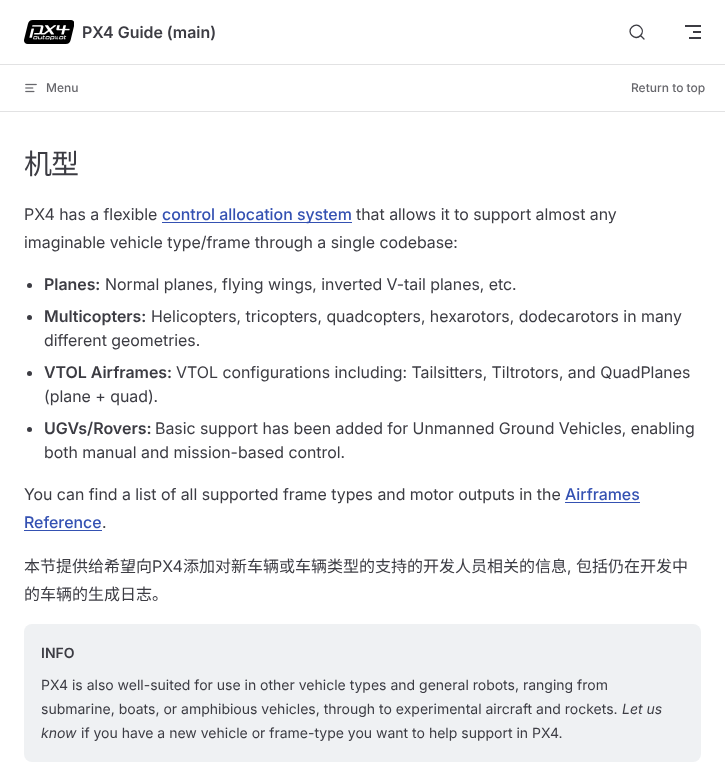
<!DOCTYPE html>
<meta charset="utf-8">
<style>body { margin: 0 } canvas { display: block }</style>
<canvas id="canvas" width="725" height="776"></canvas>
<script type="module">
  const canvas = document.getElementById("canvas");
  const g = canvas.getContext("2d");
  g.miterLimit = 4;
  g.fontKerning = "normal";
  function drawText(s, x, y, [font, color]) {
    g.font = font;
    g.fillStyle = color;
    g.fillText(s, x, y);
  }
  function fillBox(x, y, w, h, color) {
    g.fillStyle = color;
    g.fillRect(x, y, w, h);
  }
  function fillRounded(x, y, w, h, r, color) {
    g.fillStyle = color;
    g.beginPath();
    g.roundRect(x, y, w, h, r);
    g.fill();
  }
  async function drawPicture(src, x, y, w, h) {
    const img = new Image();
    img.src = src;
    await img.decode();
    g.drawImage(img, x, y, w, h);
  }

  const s1 = ["600 16px Inter", "#3C3C43"];
  const s2 = ["500 12px 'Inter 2'", "#67676C"];
  const s3 = ["28px Noto Sans CJK SC", "#3C3C43"];
  const s4 = ["16px Inter", "#3C3C43"];
  const s5 = ["500 16px Inter", "#3451B2"];
  const s6 = ["600 16px 'Inter 2'", "#3C3C43"];
  const s7 = ["16px Noto Sans CJK SC", "#3C3C43"];
  const s8 = ["600 14px 'Inter 2'", "#3C3C43"];
  const s9 = ["14px 'Inter 2'", "#3C3C43"];
  const s10 = ["italic 14px Inter", "#3C3C43"];

  fillBox(0, 0, 725, 776, "#FFFFFF");
  await drawPicture("pic1.png", 24, 20, 50, 24);
  drawText("PX4 Guide (main)", 82, 38, s1);
  g.beginPath();
  g.moveTo(640.5, 35.5);
  g.lineTo(644, 39);
  g.lineTo(640.5, 35.5);
  g.bezierCurveTo(635, 41.5, 626, 32.5, 632, 27);
  g.bezierCurveTo(638, 21.5, 646, 30, 640.5, 35.5);
  g.closePath();
  g.strokeStyle = "#3C3C43";
  g.lineWidth = 1.3;
  g.lineCap = "round";
  g.lineJoin = "round";
  g.stroke();
  fillBox(685, 25, 16, 2, "#3C3C43");
  fillBox(693, 31, 8, 2, "#3C3C43");
  fillBox(689, 37, 12, 2, "#3C3C43");
  fillBox(0, 64, 725, 1, "#E2E2E3");
  fillBox(0, 111, 725, 1, "#E2E2E3");
  await drawPicture("pic2.png", 25, 83, 12, 10);
  drawText("Menu", 46, 92, s2);
  drawText("Return to top", 631, 92, s2);
  g.letterSpacing = "-1px";
  drawText("机型", 24, 174, s3);
  g.letterSpacing = "0px";
  drawText("PX4 has a flexible", 24, 220, s4);
  fillBox(162, 222, 190, 1, "#3451B2");
  drawText("control allocation system", 162, 220, s5);
  drawText("that allows it to support almost any", 356, 220, s4);
  drawText("imaginable vehicle type/frame through a single codebase:", 24, 248, s4);
  g.beginPath();
  g.arc(29.5, 285.5, 2.5, 0, Math.PI * 2);
  g.fill();
  drawText("Planes:", 44, 290, s1);
  drawText("Normal planes, flying wings, inverted V-tail planes, etc.", 105, 290, s4);
  g.beginPath();
  g.arc(29.5, 317.5, 2.5, 0, Math.PI * 2);
  g.fill();
  drawText("Multicopters:", 44, 322, s1);
  drawText("Helicopters, tricopters, quadcopters, hexarotors, dodecarotors in many", 151, 322, s4);
  drawText("different geometries.", 44, 346, s4);
  g.beginPath();
  g.arc(29.5, 373.5, 2.5, 0, Math.PI * 2);
  g.fill();
  drawText("VTOL Airframes:", 44, 378, s1);
  drawText("VTOL configurations including: Tailsitters, Tiltrotors, and QuadPlanes", 176, 378, s4);
  drawText("(plane + quad).", 44, 402, s4);
  g.beginPath();
  g.arc(29.5, 429.5, 2.5, 0, Math.PI * 2);
  g.fill();
  drawText("UGVs/Rovers:", 44, 434, s6);
  drawText("Basic support has been added for Unmanned Ground Vehicles, enabling", 155, 434, s4);
  drawText("both manual and mission-based control.", 44, 458, s4);
  drawText("You can find a list of all supported frame types and motor outputs in the", 24, 500, s4);
  drawText("Airframes", 565, 500, s5);
  fillBox(565, 502, 75, 1, "#3451B2");
  drawText("Reference", 24, 528, s5);
  fillBox(24, 530, 78, 1, "#3451B2");
  drawText(".", 102, 528, s4);
  drawText("本节提供给希望向", 24, 572, s7);
  drawText("PX4", 152, 572, s4);
  drawText("添加对新车辆或车辆类型的支持的开发人员相关的信息", 183, 572, s7);
  drawText("包括仍在开发中", 576, 572, s7);
  drawText(",", 567, 572, s4);
  drawText("的车辆的生成日志。", 24, 600, s7);
  fillRounded(24, 624, 677, 138, 8, "#EFF1F3");
  drawText("INFO", 41, 658, s8);
  drawText("PX4 is also well-suited for use in other vehicle types and general robots, ranging from", 41, 690, s9);
  drawText("submarine, boats, or amphibious vehicles, through to experimental aircraft and rockets.", 41, 714, s9);
  drawText("Let us", 622, 714, s10);
  drawText("know", 41, 738, s10);
  drawText("if you have a new vehicle or frame-type you want to help support in PX4.", 81, 738, s9);
</script>
